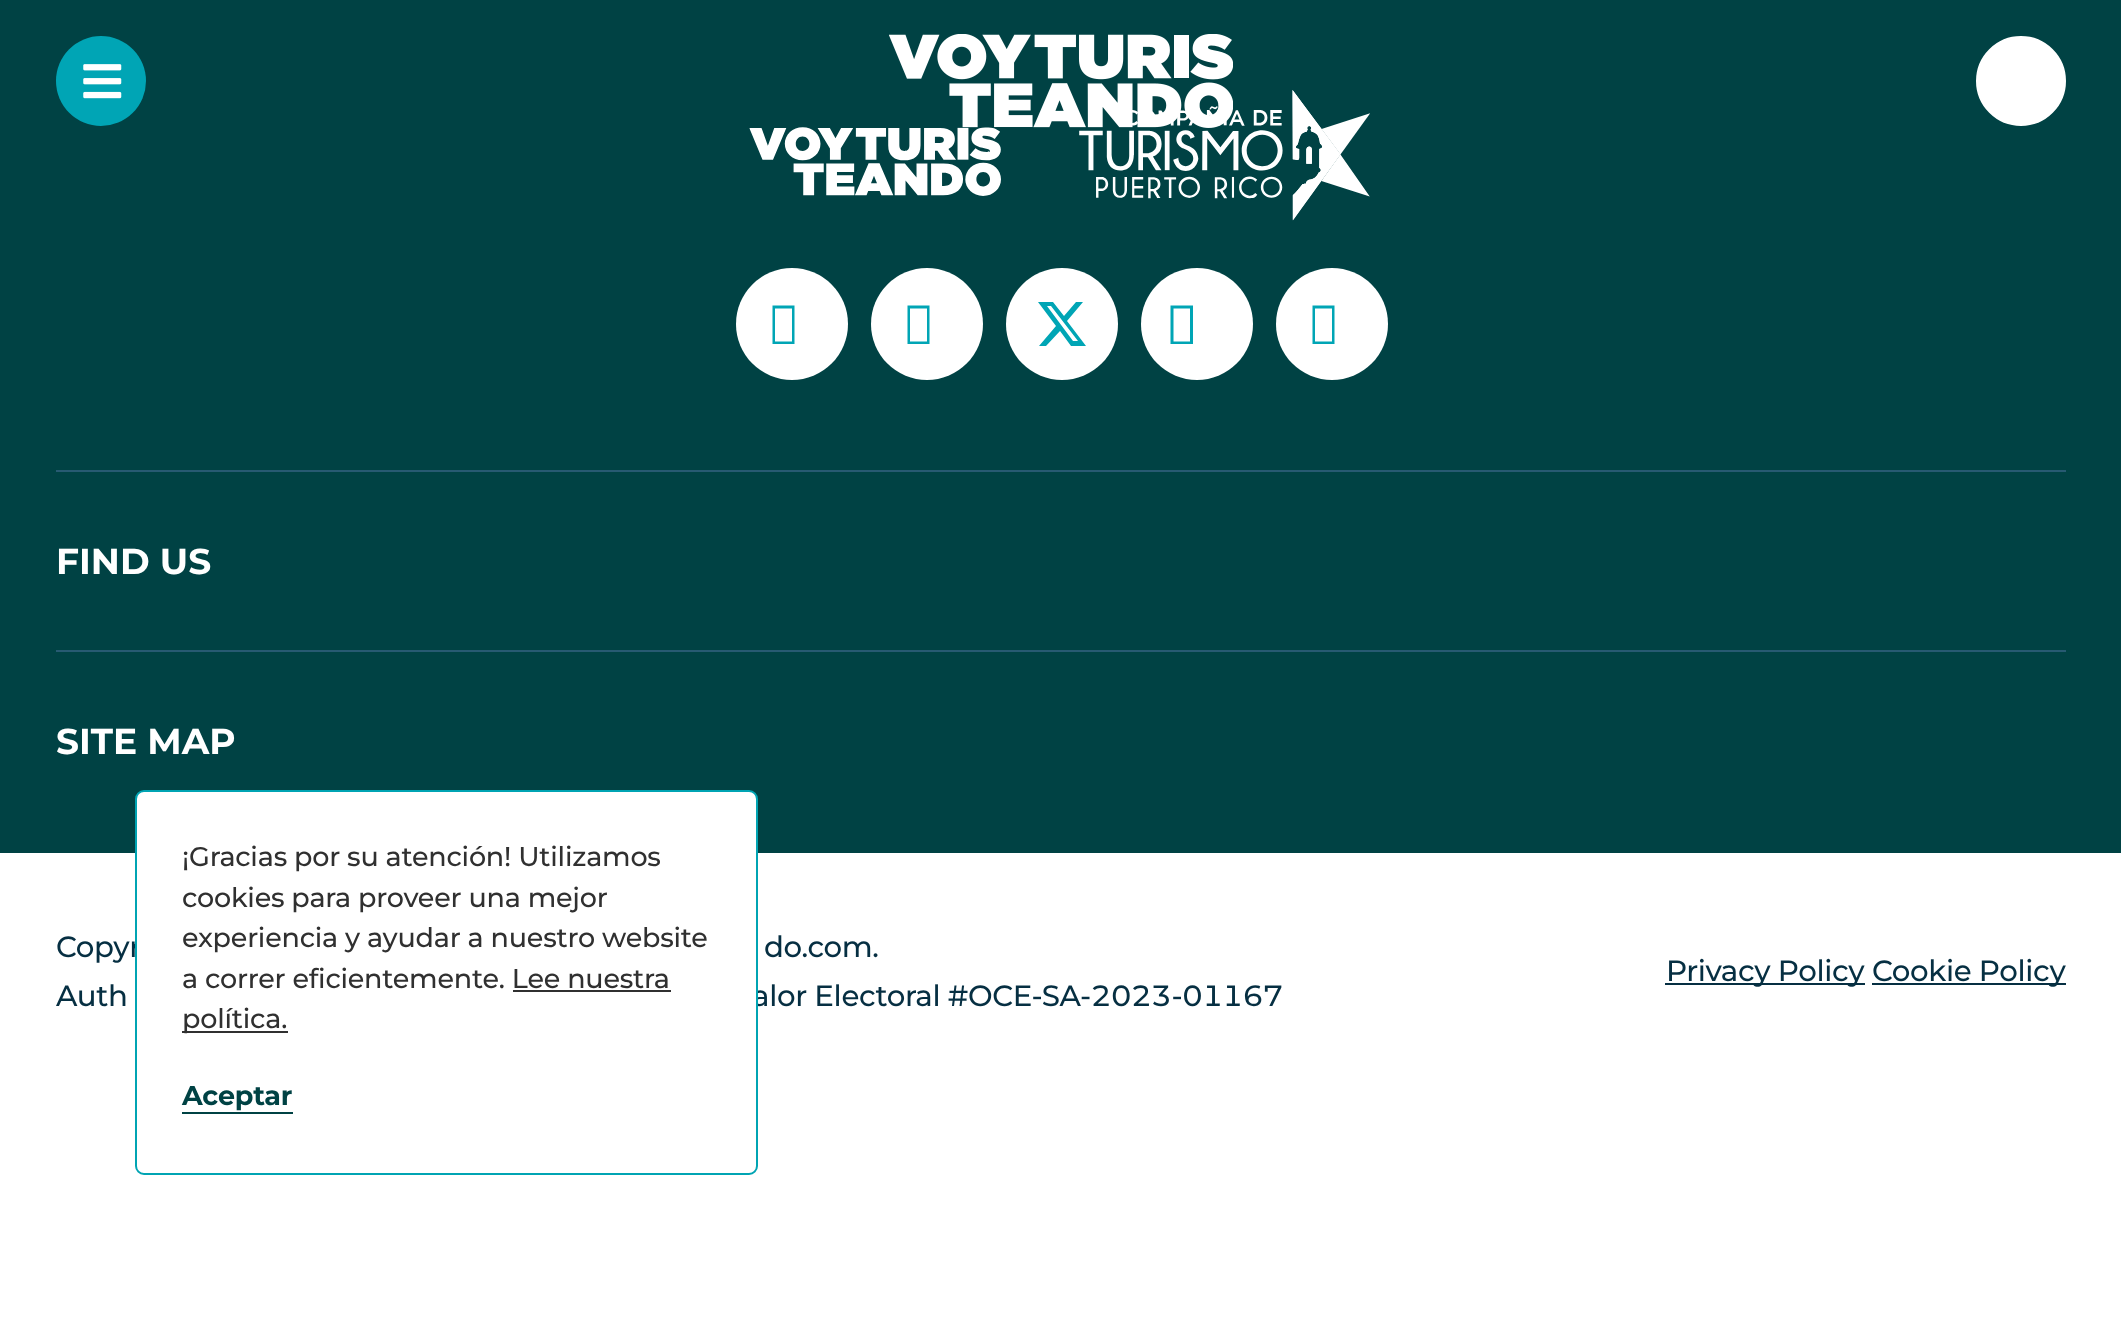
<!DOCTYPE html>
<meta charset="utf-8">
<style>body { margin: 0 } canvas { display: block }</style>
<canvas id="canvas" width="2121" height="1319"></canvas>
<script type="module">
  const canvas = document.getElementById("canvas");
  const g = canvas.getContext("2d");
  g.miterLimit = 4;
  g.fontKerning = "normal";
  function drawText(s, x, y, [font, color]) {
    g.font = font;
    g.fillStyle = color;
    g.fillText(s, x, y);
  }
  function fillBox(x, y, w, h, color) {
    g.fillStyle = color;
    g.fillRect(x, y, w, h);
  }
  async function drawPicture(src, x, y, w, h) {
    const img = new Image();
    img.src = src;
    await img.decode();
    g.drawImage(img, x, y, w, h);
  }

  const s1 = ["bold 36px Montserrat", "#FFFFFF"];
  const s2 = ["500 29.25px Montserrat", "#062F42"];
  const s3 = ["500 29.25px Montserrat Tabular", "#062F42"];
  const s4 = ["500 27px Montserrat", "#303030"];
  const s5 = ["bold 27px Montserrat", "#004244"];

  fillBox(0, 0, 2121, 1319, "#FFFFFF");
  fillBox(0, 0, 2121, 853, "#004244");
  g.fillStyle = "#00A5B5";
  g.beginPath();
  g.arc(101, 81, 45, 0, Math.PI * 2);
  g.fill();
  await drawPicture("pic1.png", 83, 64, 39, 35);
  await drawPicture("pic3.png", 749, 90, 621, 131);
  await drawPicture("pic2.png", 889, 34, 344, 94);
  g.fillStyle = "#FFFFFF";
  g.beginPath();
  g.arc(2021, 81, 44, 0, Math.PI * 2);
  g.fill();
  g.strokeStyle = "#FFFFFF";
  g.lineWidth = 2;
  g.stroke();
  g.beginPath();
  g.arc(792, 324, 56, 0, Math.PI * 2);
  g.fill();
  g.fillStyle = "#00A5B5";
  g.beginPath();
  g.moveTo(772.5, 344);
  g.lineTo(772.5, 305.5);
  g.lineTo(794.5, 305.5);
  g.lineTo(794.5, 344);
  g.closePath();
  g.moveTo(775, 341.5);
  g.lineTo(792, 341.5);
  g.lineTo(792, 308.5);
  g.lineTo(775, 308.5);
  g.closePath();
  g.fill();
  g.fillStyle = "#FFFFFF";
  g.beginPath();
  g.arc(927, 324, 56, 0, Math.PI * 2);
  g.fill();
  g.fillStyle = "#00A5B5";
  g.beginPath();
  g.moveTo(907.5, 344);
  g.lineTo(907.5, 305.5);
  g.lineTo(929.5, 305.5);
  g.lineTo(929.5, 344);
  g.closePath();
  g.moveTo(910, 341.5);
  g.lineTo(927, 341.5);
  g.lineTo(927, 308.5);
  g.lineTo(910, 308.5);
  g.closePath();
  g.fill();
  g.fillStyle = "#FFFFFF";
  g.beginPath();
  g.arc(1062, 324, 56, 0, Math.PI * 2);
  g.fill();
  g.fillStyle = "#00A5B5";
  g.beginPath();
  g.moveTo(1076, 302);
  g.lineTo(1083, 302);
  g.lineTo(1067, 321);
  g.lineTo(1086, 346);
  g.lineTo(1071, 346);
  g.lineTo(1060, 331);
  g.lineTo(1046, 346);
  g.lineTo(1039, 346);
  g.lineTo(1056, 326);
  g.lineTo(1038, 302);
  g.lineTo(1053, 302);
  g.lineTo(1064, 316);
  g.closePath();
  g.moveTo(1073, 341);
  g.lineTo(1078, 341);
  g.lineTo(1051, 306);
  g.lineTo(1047, 306);
  g.closePath();
  g.fill();
  g.fillStyle = "#FFFFFF";
  g.beginPath();
  g.arc(1197, 324, 56, 0, Math.PI * 2);
  g.fill();
  g.fillStyle = "#00A5B5";
  g.beginPath();
  g.moveTo(1170.5, 344);
  g.lineTo(1170.5, 305.5);
  g.lineTo(1193, 305.5);
  g.lineTo(1193, 344);
  g.closePath();
  g.moveTo(1173.5, 341.5);
  g.lineTo(1190, 341.5);
  g.lineTo(1190, 308.5);
  g.lineTo(1173.5, 308.5);
  g.closePath();
  g.fill();
  g.fillStyle = "#FFFFFF";
  g.beginPath();
  g.arc(1332, 324, 56, 0, Math.PI * 2);
  g.fill();
  g.fillStyle = "#00A5B5";
  g.beginPath();
  g.moveTo(1312.5, 344);
  g.lineTo(1312.5, 305.5);
  g.lineTo(1334.5, 305.5);
  g.lineTo(1334.5, 344);
  g.closePath();
  g.moveTo(1315, 341.5);
  g.lineTo(1332, 341.5);
  g.lineTo(1332, 308.5);
  g.lineTo(1315, 308.5);
  g.closePath();
  g.fill();
  fillBox(56, 470, 2010, 2, "#275A72");
  drawText("FIND US", 56, 574, s1);
  fillBox(56, 650, 2010, 2, "#275A72");
  drawText("SITE MAP", 56, 754, s1);
  g.letterSpacing = "-0.35px";
  drawText("Copyr", 56, 957, s2);
  drawText("do.com.", 764, 957, s2);
  drawText("Auth", 56, 1006, s3);
  drawText("alor Electoral #OCE-SA-2023-01167", 752, 1006, s3);
  fillBox(1665, 983, 200, 2, "#062F42");
  drawText("Privacy Policy", 1666, 981, s2);
  fillBox(1872, 983, 194, 2, "#062F42");
  drawText("Cookie Policy", 1872, 981, s2);
  g.fillStyle = "#FFFFFF";
  g.beginPath();
  g.roundRect(136, 791, 621, 383, 8);
  g.fill();
  g.strokeStyle = "#00A4B3";
  g.stroke();
  g.letterSpacing = "-0.2px";
  drawText("¡Gracias por su atención! Utilizamos", 182, 866, s4);
  drawText("cookies para proveer una mejor", 182, 907, s4);
  drawText("experiencia y ayudar a nuestro website", 182, 947, s4);
  drawText("a correr eficientemente. Lee nuestra", 182, 988, s4);
  fillBox(182, 1031, 106, 2, "#303030");
  drawText("política.", 182, 1028, s4);
  fillBox(513, 990, 158, 2, "#303030");
  drawText("Aceptar", 182, 1105, s5);
  fillBox(182, 1112, 111, 2, "#004244");
</script>
